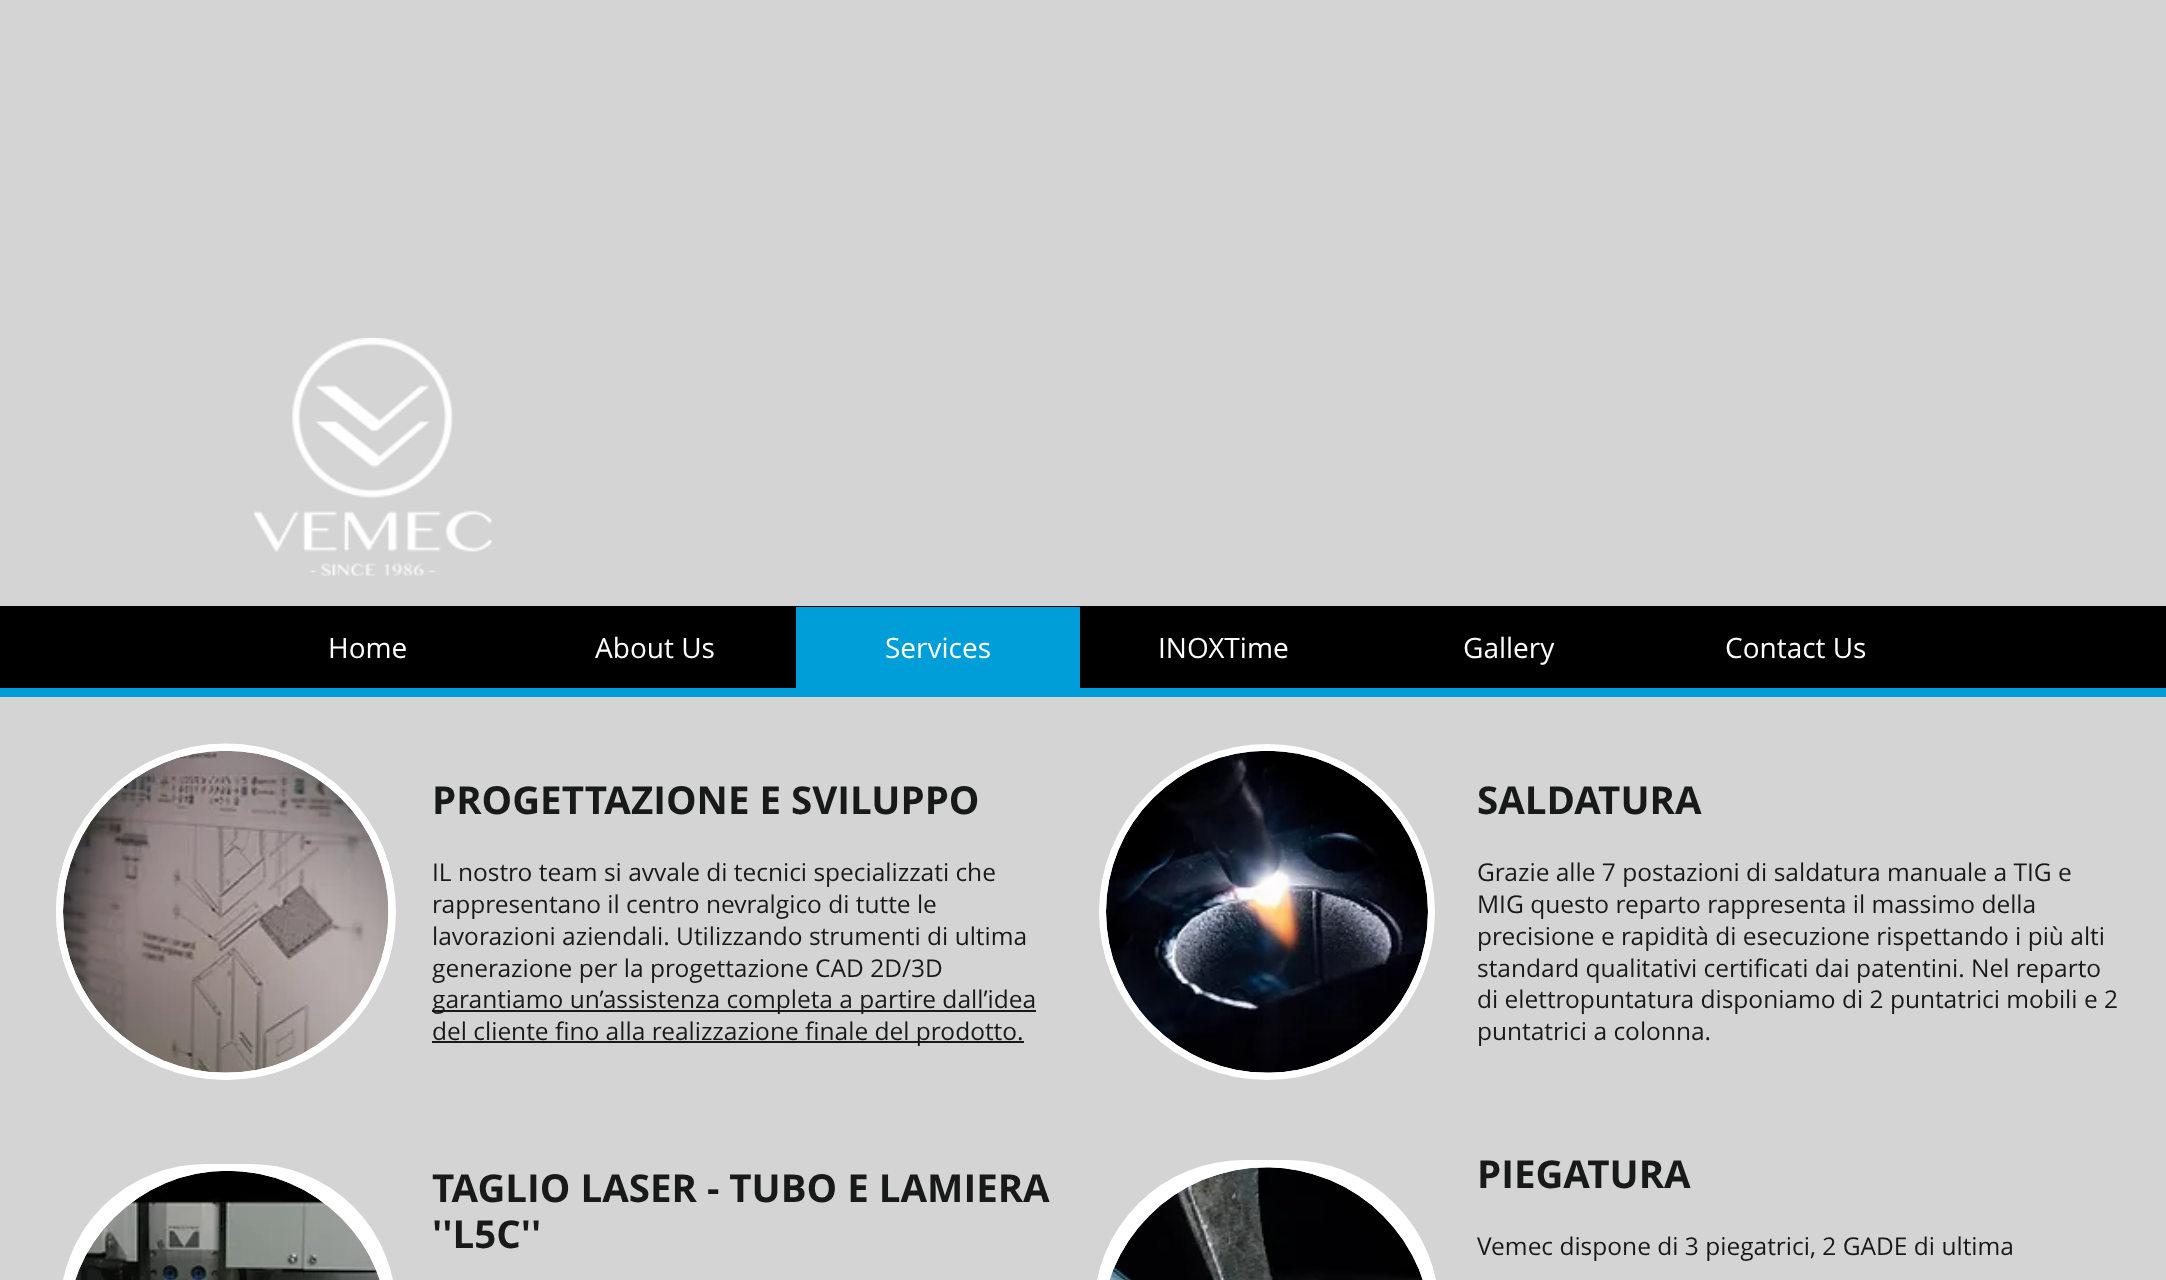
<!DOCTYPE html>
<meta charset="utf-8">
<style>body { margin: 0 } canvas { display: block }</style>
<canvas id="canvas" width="2166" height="1280"></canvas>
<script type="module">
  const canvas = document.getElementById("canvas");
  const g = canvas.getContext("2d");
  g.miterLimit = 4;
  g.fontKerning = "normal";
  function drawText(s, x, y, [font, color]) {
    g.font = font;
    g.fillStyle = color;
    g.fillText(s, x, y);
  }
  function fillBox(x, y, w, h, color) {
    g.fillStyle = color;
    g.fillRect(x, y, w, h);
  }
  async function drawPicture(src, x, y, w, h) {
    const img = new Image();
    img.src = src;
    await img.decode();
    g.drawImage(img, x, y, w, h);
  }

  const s1 = ["28px Open Sans", "#FFFFFF"];
  const s2 = ["bold 38.5px Open Sans", "#181919"];
  const s3 = ["24.5px Open Sans", "#181919"];

  fillBox(0, 0, 2166, 1280, "#D4D4D4");
  await drawPicture("pic1.png", 254, 338, 238, 238);
  fillBox(0, 606, 2166, 82, "#000000");
  drawText("Home", 328, 658, s1);
  drawText("About Us", 595, 658, s1);
  fillBox(796, 607, 284, 81, "#009ED8");
  drawText("Services", 885, 658, s1);
  drawText("INOXTime", 1158, 658, s1);
  drawText("Gallery", 1463, 658, s1);
  drawText("Contact Us", 1725, 658, s1);
  g.beginPath();
  g.ellipse(226, 912, 170, 168, 0, 0, Math.PI * 2);
  g.fill();
  g.beginPath();
  g.moveTo(226, 747);
  g.bezierCurveTo(317.5, 747, 392, 821, 392, 912);
  g.bezierCurveTo(392, 1002.5, 317.5, 1076, 226, 1076);
  g.bezierCurveTo(134, 1076, 59.5, 1002.5, 59.5, 912);
  g.bezierCurveTo(59.5, 821, 134, 747, 226, 747);
  g.closePath();
  g.strokeStyle = "#FFFFFF";
  g.lineWidth = 7;
  g.stroke();
  await drawPicture("pic2.png", 63, 751, 326, 322);
  drawText("PROGETTAZIONE E SVILUPPO", 432, 814, s2);
  drawText("IL nostro team si avvale di tecnici specializzati che", 432, 881, s3);
  drawText("rappresentano il centro nevralgico di tutte le", 432, 913, s3);
  drawText("lavorazioni aziendali. Utilizzando strumenti di ultima", 432, 945, s3);
  drawText("generazione per la progettazione CAD 2D/3D", 432, 977, s3);
  fillBox(432, 1010, 604, 2, "#181919");
  drawText("garantiamo un’assistenza completa a partire dall’idea", 432, 1008, s3);
  fillBox(432, 1041, 592, 2, "#181919");
  drawText("del cliente fino alla realizzazione finale del prodotto.", 432, 1040, s3);
  g.fillStyle = "#FFFFFF";
  g.beginPath();
  g.arc(1267, 912, 164.5, 0, Math.PI * 2);
  g.fill();
  g.stroke();
  await drawPicture("pic3.png", 1106, 751, 322, 322);
  drawText("SALDATURA", 1477, 814, s2);
  drawText("Grazie alle 7 postazioni di saldatura manuale a TIG e", 1477, 881, s3);
  drawText("MIG questo reparto rappresenta il massimo della", 1477, 913, s3);
  drawText("precisione e rapidità di esecuzione rispettando i più alti", 1477, 945, s3);
  drawText("standard qualitativi certificati dai patentini. Nel reparto", 1477, 977, s3);
  drawText("di elettropuntatura disponiamo di 2 puntatrici mobili e 2", 1477, 1008, s3);
  drawText("puntatrici a colonna.", 1477, 1040, s3);
  g.fillStyle = "#FFFFFF";
  g.beginPath();
  g.roundRect(63.5, 1167.5, 329, 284, 164.5);
  g.fill();
  g.stroke();
  await drawPicture("pic4.png", 75, 1171, 305, 109);
  drawText("TAGLIO LASER - TUBO E LAMIERA", 432, 1202, s2);
  drawText("''L5C''", 432, 1248, s2);
  g.fillStyle = "#FFFFFF";
  g.beginPath();
  g.roundRect(1097.5, 1163.5, 338, 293, 169);
  g.fill();
  g.stroke();
  await drawPicture("pic5.png", 1109, 1167, 314, 113);
  drawText("PIEGATURA", 1477, 1188, s2);
  drawText("Vemec dispone di 3 piegatrici, 2 GADE di ultima", 1477, 1255, s3);
  fillBox(0, 688, 2166, 9, "#009ED8");
</script>
